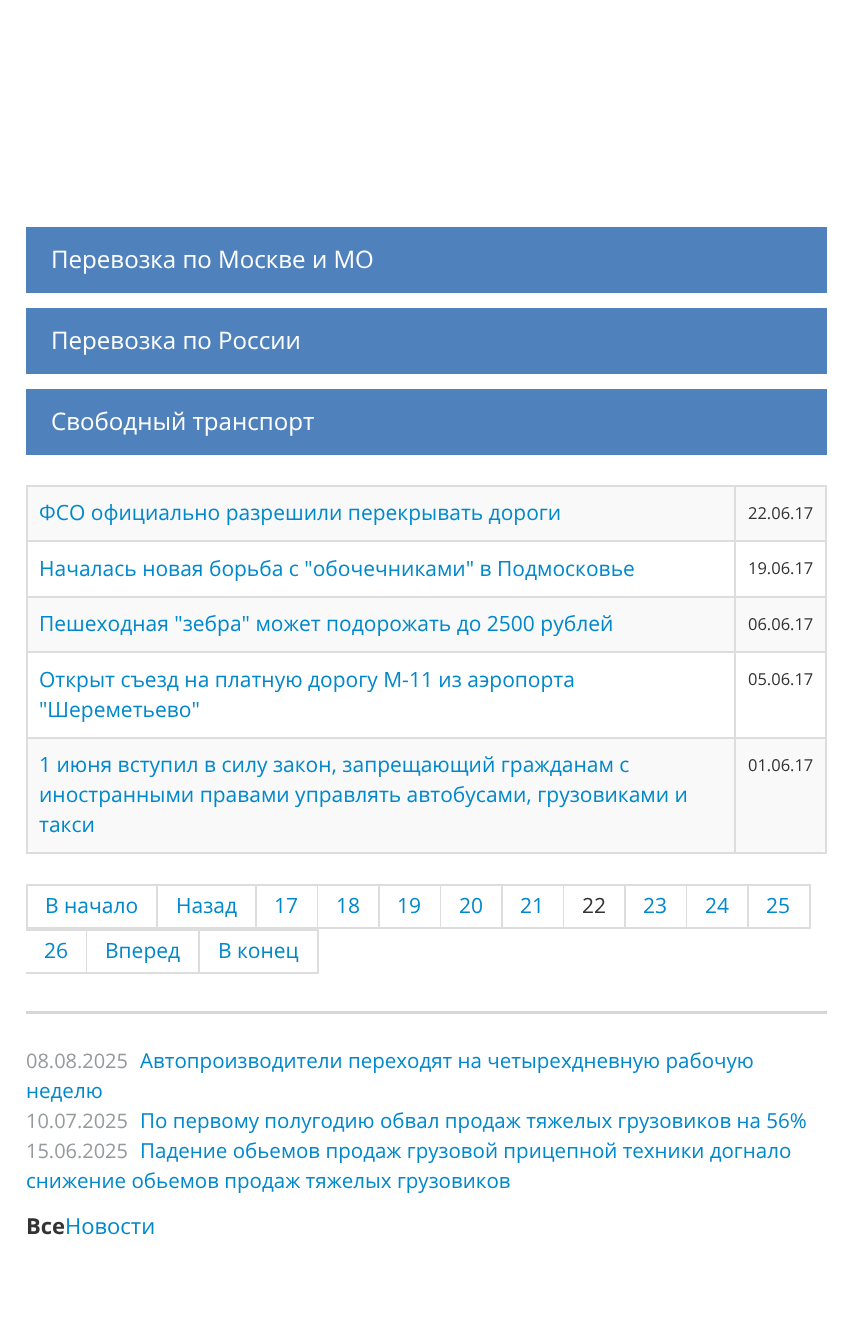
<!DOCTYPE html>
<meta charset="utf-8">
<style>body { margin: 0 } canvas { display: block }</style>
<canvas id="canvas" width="851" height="1328"></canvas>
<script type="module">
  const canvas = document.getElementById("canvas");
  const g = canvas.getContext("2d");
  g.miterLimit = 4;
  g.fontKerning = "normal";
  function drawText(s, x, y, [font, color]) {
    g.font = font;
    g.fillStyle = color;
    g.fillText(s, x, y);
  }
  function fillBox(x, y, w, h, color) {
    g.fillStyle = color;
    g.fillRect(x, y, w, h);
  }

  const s1 = ["24.1px Open Sans", "#FFFFFF"];
  const s2 = ["21px Open Sans", "#0088CC"];
  const s3 = ["16.5px Open Sans", "#333333"];
  const s4 = ["21px Open Sans", "#333333"];
  const s5 = ["20px Open Sans", "#959A9D"];
  const s6 = ["20.55px Open Sans", "#0088CC"];
  const s7 = ["bold 22px Open Sans", "#333333"];
  const s8 = ["22px Open Sans", "#0088CC"];

  fillBox(0, 0, 851, 1328, "#FFFFFF");
  fillBox(26, 227, 801, 66, "#4F81BD");
  drawText("Перевозка по Москве и МО", 51, 268, s1);
  fillBox(26, 308, 801, 66, "#4F81BD");
  drawText("Перевозка по России", 51, 349, s1);
  fillBox(26, 389, 801, 66, "#4F81BD");
  drawText("Свободный транспорт", 51, 430, s1);
  fillBox(26, 485, 801, 2, "#DDDDDD");
  fillBox(825, 485, 2, 369, "#DDDDDD");
  fillBox(26, 852, 801, 2, "#DDDDDD");
  fillBox(28, 487, 706, 53, "#F9F9F9");
  drawText("ФСО официально разрешили перекрывать дороги", 39, 520, s2);
  fillBox(736, 487, 89, 53, "#F9F9F9");
  fillBox(734, 540, 93, 2, "#DDDDDD");
  fillBox(734, 596, 93, 2, "#DDDDDD");
  fillBox(734, 651, 93, 2, "#DDDDDD");
  g.fillStyle = "#F9F9F9";
  g.beginPath();
  g.roundRect(27, 737, 708, 115, [0, 0, 0, 6]);
  g.fill();
  g.beginPath();
  g.roundRect(735, 737, 90, 115, [0, 0, 6, 0]);
  g.fill();
  fillBox(734, 737, 93, 2, "#DDDDDD");
  fillBox(734, 737, 2, 117, "#DDDDDD");
  fillBox(26, 737, 709, 2, "#DDDDDD");
  fillBox(734, 651, 2, 87, "#DDDDDD");
  fillBox(26, 651, 709, 2, "#DDDDDD");
  fillBox(734, 596, 2, 57, "#DDDDDD");
  fillBox(26, 596, 709, 2, "#DDDDDD");
  fillBox(734, 540, 2, 57, "#DDDDDD");
  fillBox(26, 540, 709, 2, "#DDDDDD");
  fillBox(734, 485, 2, 57, "#DDDDDD");
  drawText("22.06.17", 748, 519, s3);
  fillBox(26, 737, 2, 117, "#DDDDDD");
  fillBox(26, 651, 2, 87, "#DDDDDD");
  fillBox(26, 596, 2, 57, "#DDDDDD");
  fillBox(26, 485, 2, 112, "#DDDDDD");
  drawText("Началась новая борьба c \"обочечниками\" в Подмосковье", 39, 576, s2);
  drawText("19.06.17", 748, 574, s3);
  fillBox(28, 598, 706, 53, "#F9F9F9");
  drawText("Пешеходная \"зебра\" может подорожать до 2500 рублей", 39, 631, s2);
  fillBox(736, 598, 89, 53, "#F9F9F9");
  drawText("06.06.17", 748, 630, s3);
  drawText("Открыт съезд на платную дорогу М-11 из аэропорта", 39, 687, s2);
  drawText("\"Шереметьево\"", 39, 717, s2);
  drawText("05.06.17", 748, 685, s3);
  drawText("1 июня вступил в силу закон, запрещающий гражданам с", 39, 772, s2);
  drawText("иностранными правами управлять автобусами, грузовиками и", 39, 802, s2);
  drawText("такси", 39, 832, s2);
  drawText("01.06.17", 748, 771, s3);
  g.strokeStyle = "#DDDDDD";
  g.lineWidth = 2;
  g.strokeRect(27, 885, 130, 43);
  drawText("В начало", 45, 913, s2);
  fillBox(158, 884, 652, 2, "#DDDDDD");
  fillBox(255, 884, 2, 45, "#DDDDDD");
  fillBox(158, 927, 99, 2, "#DDDDDD");
  drawText("Назад", 176, 913, s2);
  fillBox(317, 884, 1, 45, "#DDDDDD");
  fillBox(257, 927, 61, 2, "#DDDDDD");
  drawText("17", 274, 913, s2);
  fillBox(378, 884, 2, 45, "#DDDDDD");
  fillBox(318, 927, 62, 2, "#DDDDDD");
  drawText("18", 336, 913, s2);
  fillBox(440, 884, 1, 45, "#DDDDDD");
  fillBox(380, 927, 61, 2, "#DDDDDD");
  drawText("19", 397, 913, s2);
  fillBox(501, 884, 2, 45, "#DDDDDD");
  fillBox(441, 927, 62, 2, "#DDDDDD");
  drawText("20", 459, 913, s2);
  fillBox(563, 884, 1, 45, "#DDDDDD");
  fillBox(503, 927, 61, 2, "#DDDDDD");
  drawText("21", 520, 913, s2);
  fillBox(624, 884, 2, 45, "#DDDDDD");
  fillBox(564, 927, 62, 2, "#DDDDDD");
  drawText("22", 582, 913, s4);
  fillBox(686, 884, 1, 45, "#DDDDDD");
  fillBox(626, 927, 61, 2, "#DDDDDD");
  drawText("23", 643, 913, s2);
  fillBox(747, 884, 2, 45, "#DDDDDD");
  fillBox(687, 927, 62, 2, "#DDDDDD");
  drawText("24", 705, 913, s2);
  fillBox(809, 884, 2, 45, "#DDDDDD");
  fillBox(749, 927, 61, 2, "#DDDDDD");
  drawText("25", 766, 913, s2);
  fillBox(26, 929, 292, 2, "#DDDDDD");
  fillBox(86, 929, 1, 45, "#DDDDDD");
  fillBox(26, 972, 61, 2, "#DDDDDD");
  drawText("26", 44, 958, s2);
  fillBox(198, 929, 2, 45, "#DDDDDD");
  fillBox(87, 972, 113, 2, "#DDDDDD");
  drawText("Вперед", 105, 958, s2);
  fillBox(317, 929, 2, 45, "#DDDDDD");
  fillBox(200, 972, 118, 2, "#DDDDDD");
  drawText("В конец", 218, 958, s2);
  fillBox(26, 1011, 801, 3, "#D4D6D7");
  drawText("08.08.2025", 26, 1068, s5);
  drawText("Автопроизводители переходят на четырехдневную рабочую", 140, 1068, s6);
  drawText("неделю", 26, 1098, s6);
  drawText("10.07.2025", 26, 1128, s5);
  drawText("По первому полугодию обвал продаж тяжелых грузовиков на 56%", 140, 1128, s6);
  drawText("15.06.2025", 26, 1158, s5);
  drawText("Падение обьемов продаж грузовой прицепной техники догнало", 140, 1158, s6);
  drawText("снижение обьемов продаж тяжелых грузовиков", 26, 1188, s6);
  drawText("Все", 26, 1234, s7);
  drawText("Новости", 65, 1234, s8);
</script>
